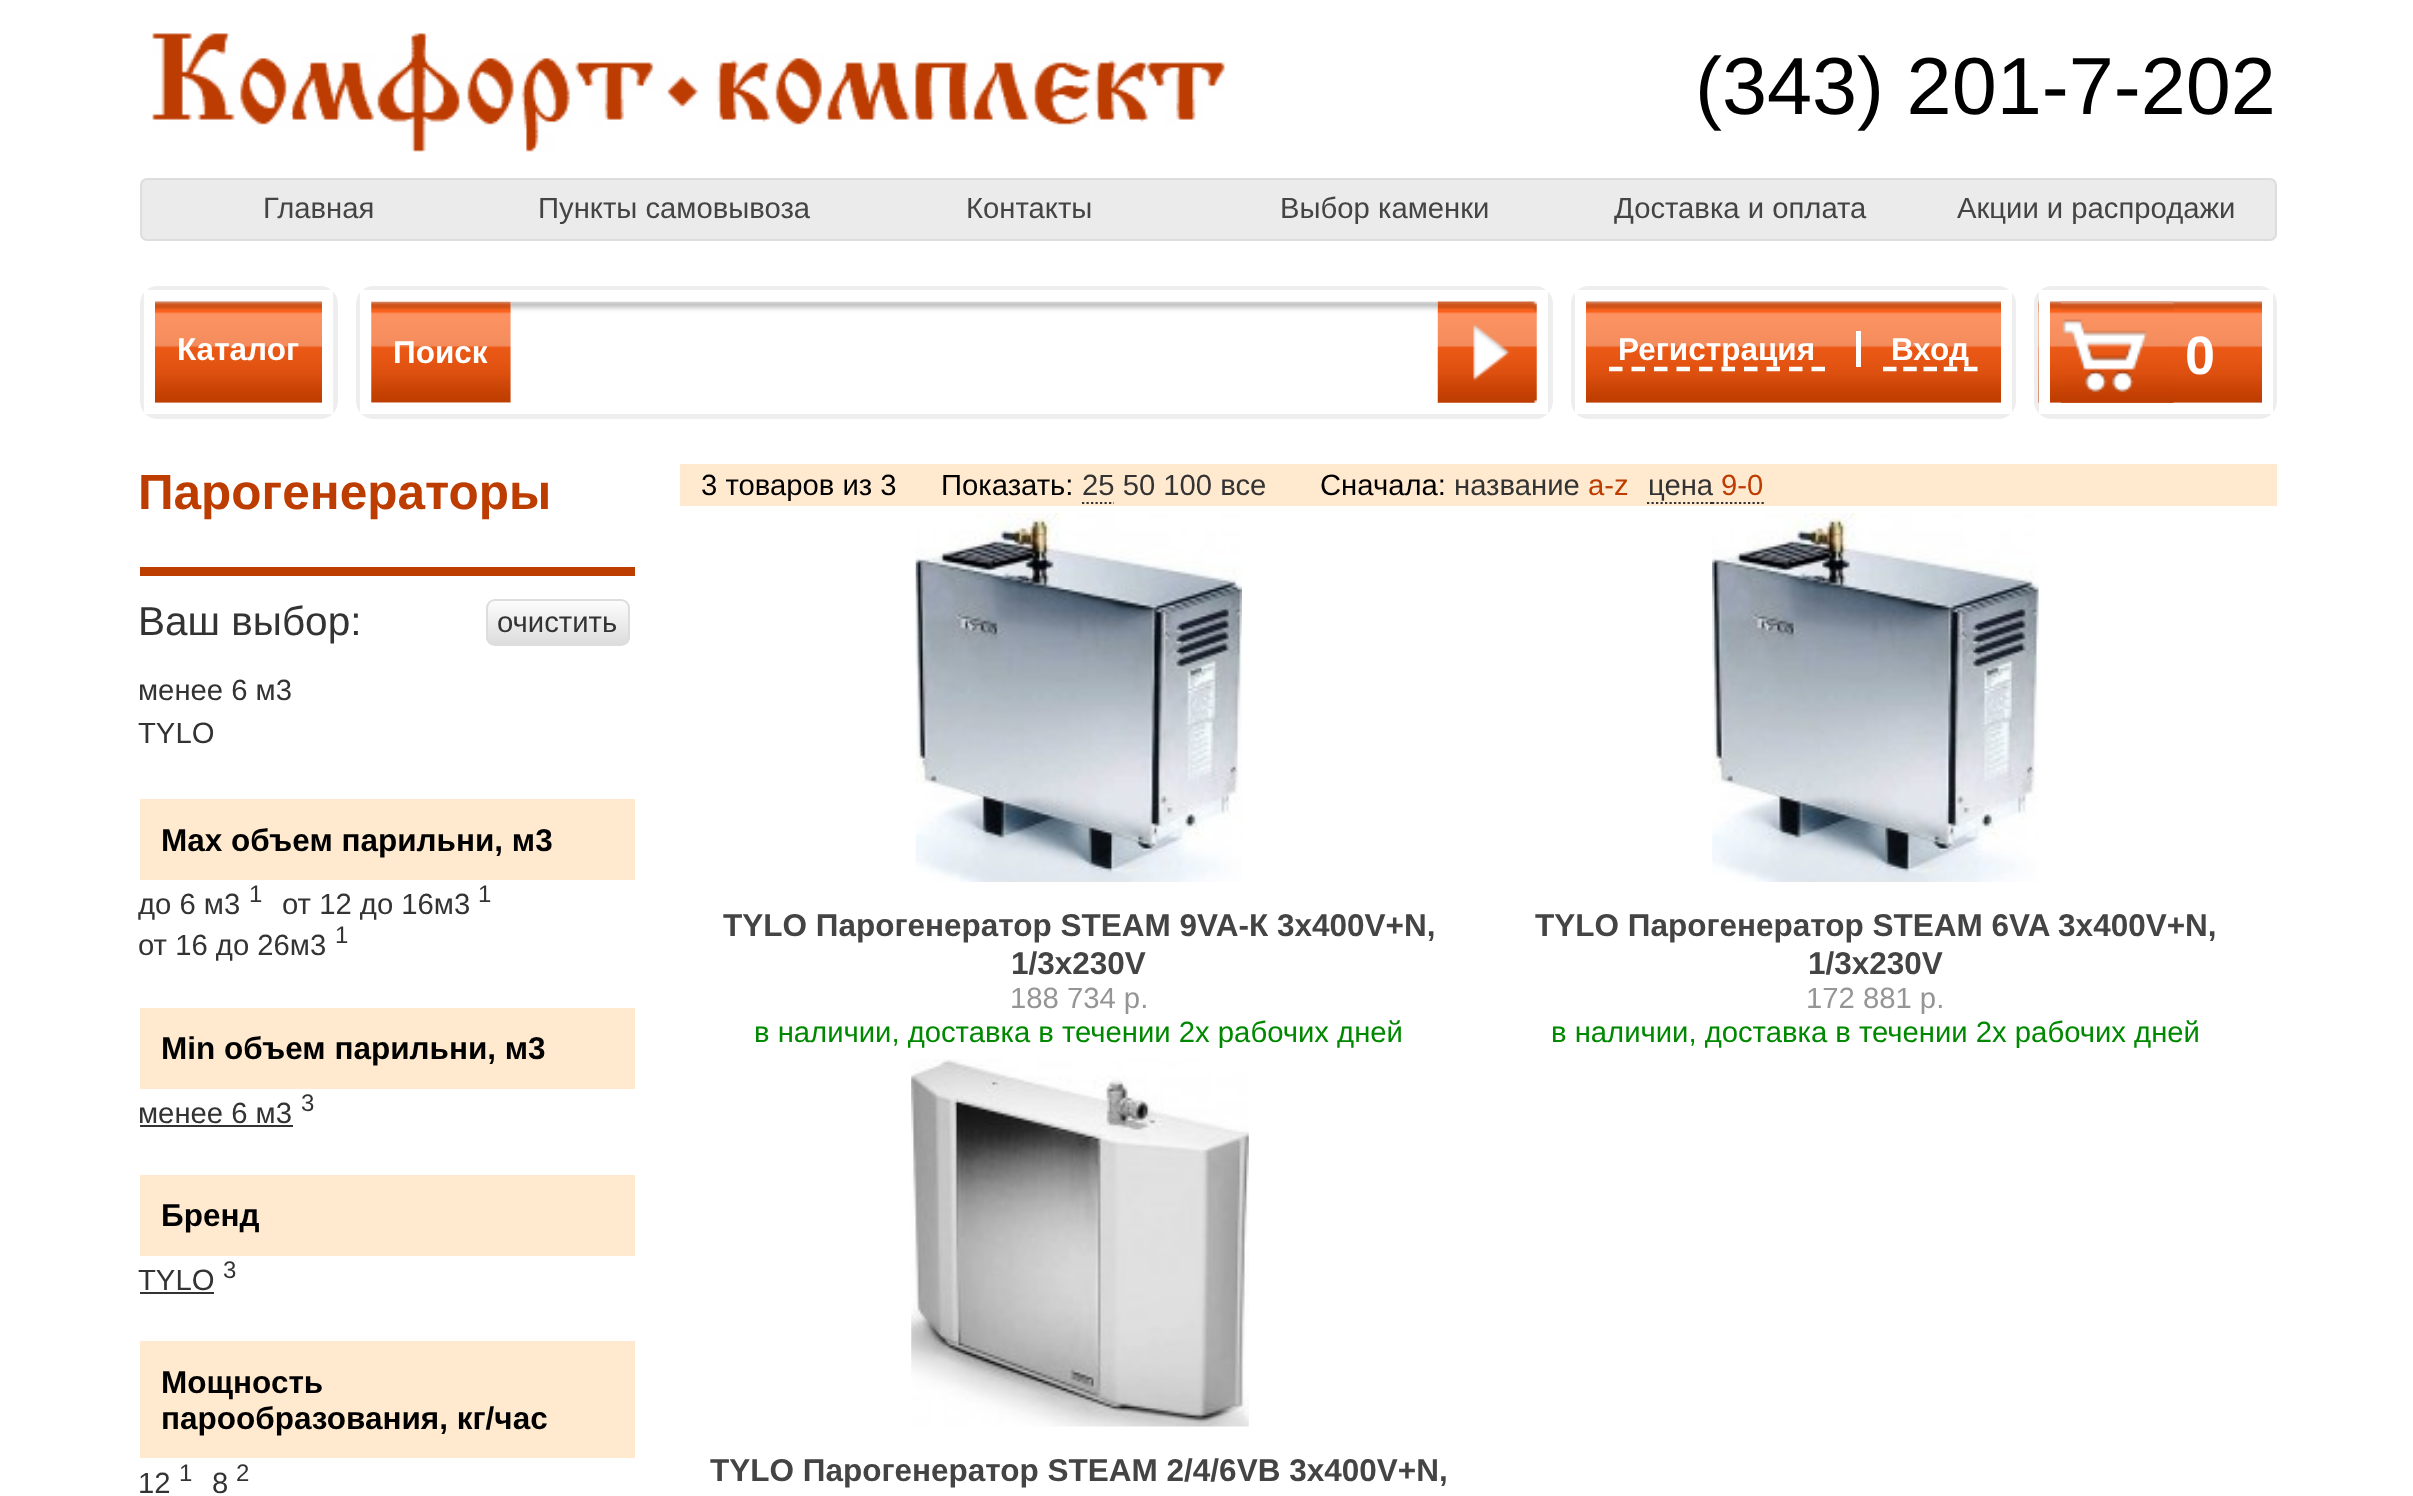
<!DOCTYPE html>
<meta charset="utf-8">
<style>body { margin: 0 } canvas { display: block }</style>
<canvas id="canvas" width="2413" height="1496"></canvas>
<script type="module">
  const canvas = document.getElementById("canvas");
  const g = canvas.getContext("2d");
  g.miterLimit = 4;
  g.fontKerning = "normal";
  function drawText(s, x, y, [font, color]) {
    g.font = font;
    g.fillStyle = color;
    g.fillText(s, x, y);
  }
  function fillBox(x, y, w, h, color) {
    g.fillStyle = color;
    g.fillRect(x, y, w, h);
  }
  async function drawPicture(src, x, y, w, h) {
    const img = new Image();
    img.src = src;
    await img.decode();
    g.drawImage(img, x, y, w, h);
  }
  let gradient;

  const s1 = ["81px Liberation Sans", "#000000"];
  const s2 = ["29.25px Liberation Sans", "#444444"];
  const s3 = ["bold 31.5px Liberation Sans", "#FFFFFF"];
  const s4 = ["bold 54px Liberation Sans", "#FFFFFF"];
  const s5 = ["bold 49.5px Liberation Sans", "#BD3C00"];
  const s6 = ["40.5px Liberation Sans", "#333333"];
  const s7 = ["29.25px Liberation Sans", "#333333"];
  const s8 = ["bold 31.5px Liberation Sans", "#000000"];
  const s9 = ["24px Liberation Sans", "#333333"];
  const s10 = ["29.25px Liberation Sans", "#000000"];
  const s11 = ["29.25px Liberation Sans", "#BD3C00"];
  const s12 = ["bold 31.5px Liberation Sans", "#444444"];
  const s13 = ["29.25px Liberation Sans", "#959595"];
  const s14 = ["29.25px Liberation Sans", "#008800"];

  fillBox(0, 0, 2413, 1496, "#FFFFFF");
  await drawPicture("pic1.png", 152, 33, 1073, 119);
  drawText("(343) 201-7-202", 1695, 114, s1);
  g.fillStyle = "#EBEBEB";
  g.beginPath();
  g.roundRect(141, 179, 2135, 61, 6);
  g.fill();
  g.strokeStyle = "#DDDDDD";
  g.lineWidth = 2;
  g.stroke();
  drawText("Главная", 263, 218, s2);
  drawText("Пункты самовывоза", 538, 218, s2);
  drawText("Контакты", 966, 218, s2);
  drawText("Выбор каменки", 1280, 218, s2);
  drawText("Доставка и оплата", 1614, 218, s2);
  drawText("Акции и распродажи", 1957, 218, s2);
  g.beginPath();
  g.roundRect(142.5, 288.5, 193, 128, 15.5);
  g.strokeStyle = "#EEEEEE";
  g.lineWidth = 5;
  g.stroke();
  await drawPicture("pic2.png", 155, 301, 167, 102);
  g.strokeStyle = "#FFFFFF";
  g.lineWidth = 11;
  g.strokeRect(149.5, 295.5, 178, 113);
  drawText("Каталог", 177, 360, s3);
  g.beginPath();
  g.roundRect(358.5, 288.5, 1192, 128, 15.5);
  g.strokeStyle = "#EEEEEE";
  g.lineWidth = 5;
  g.stroke();
  g.strokeStyle = "#FFFFFF";
  g.lineWidth = 11;
  g.strokeRect(365.5, 295.5, 1177, 113);
  await drawPicture("pic3.png", 371, 301, 140, 102);
  drawText("Поиск", 393, 363, s3);
  await drawPicture("pic4.png", 510, 301, 928, 102);
  await drawPicture("pic5.png", 1437, 301, 100, 102);
  g.beginPath();
  g.roundRect(1573.5, 288.5, 440, 128, 15.5);
  g.strokeStyle = "#EEEEEE";
  g.lineWidth = 5;
  g.stroke();
  await drawPicture("pic6.png", 1586, 301, 415, 102);
  g.strokeStyle = "#FFFFFF";
  g.lineWidth = 11;
  g.strokeRect(1580.5, 295.5, 426, 113);
  g.beginPath();
  g.moveTo(1609, 369);
  g.lineTo(1825, 369);
  g.lineWidth = 4.5;
  g.setLineDash([13.5, 9]);
  g.stroke();
  drawText("Регистрация", 1618, 360, s3);
  fillBox(1856, 331, 5, 36, "#FFFFFF");
  g.beginPath();
  g.moveTo(1883, 369);
  g.lineTo(1978, 369);
  g.setLineDash([13.5, 6.75]);
  g.stroke();
  drawText("Вход", 1891, 360, s3);
  g.beginPath();
  g.roundRect(2036.5, 288.5, 238, 128, 15.5);
  g.strokeStyle = "#EEEEEE";
  g.lineWidth = 5;
  g.setLineDash([]);
  g.stroke();
  await drawPicture("pic7.png", 2038, 300, 224, 104);
  g.strokeStyle = "#FFFFFF";
  g.lineWidth = 11;
  g.strokeRect(2044.5, 295.5, 223, 113);
  await drawPicture("pic8.png", 2061, 301, 113, 102);
  drawText("0", 2185, 374, s4);
  drawText("Парогенераторы", 138, 509, s5);
  fillBox(140, 567, 495, 9, "#BD3C00");
  drawText("Ваш выбор:", 138, 635, s6);
  g.save();
  g.beginPath();
  g.roundRect(486, 599, 144, 47, 9);
  g.clip();
  gradient = g.createLinearGradient(558, 601, 558, 644);
  gradient.addColorStop(0, "#FCFCFC");
  gradient.addColorStop(1, "#DDDDDD");
  g.fillStyle = gradient;
  g.fillRect(486, 601, 144, 43);
  g.restore();
  g.beginPath();
  g.roundRect(487, 600, 142, 45, 8);
  g.strokeStyle = "#DDDDDD";
  g.lineWidth = 2;
  g.stroke();
  drawText("очистить", 497, 632, s7);
  drawText("менее 6 м3", 138, 700, s7);
  drawText("TYLO", 138, 743, s7);
  fillBox(140, 799, 495, 81, "#FFE9CF");
  drawText("Max объем парильни, м3", 161, 851, s8);
  drawText("до 6 м3", 138, 914, s7);
  drawText("1", 249, 902, s9);
  drawText("от 12 до 16м3", 282, 914, s7);
  drawText("1", 478, 902, s9);
  drawText("от 16 до 26м3", 138, 955, s7);
  drawText("1", 335, 943, s9);
  fillBox(140, 1008, 495, 81, "#FFE9CF");
  drawText("Min объем парильни, м3", 161, 1059, s8);
  drawText("менее 6 м3", 138, 1123, s7);
  fillBox(140, 1125, 153, 2, "#333333");
  drawText("3", 301, 1111, s9);
  fillBox(140, 1175, 495, 81, "#FFE9CF");
  drawText("Бренд", 161, 1226, s8);
  drawText("TYLO", 138, 1290, s7);
  fillBox(140, 1292, 74, 2, "#333333");
  drawText("3", 223, 1278, s9);
  fillBox(140, 1341, 495, 117, "#FFE9CF");
  drawText("Мощность", 161, 1393, s8);
  drawText("парообразования, кг/час", 161, 1429, s8);
  drawText("12", 138, 1493, s7);
  drawText("1", 179, 1481, s9);
  drawText("8", 212, 1493, s7);
  drawText("2", 236, 1481, s9);
  fillBox(680, 464, 1597, 42, "#FFE9CF");
  drawText("3 товаров из 3", 701, 495, s10);
  drawText("Показать:", 941, 495, s10);
  drawText("25 50 100 все", 1082, 495, s7);
  g.beginPath();
  g.moveTo(1082, 503);
  g.lineTo(1114, 503);
  g.strokeStyle = "#333333";
  g.lineWidth = 2.2;
  g.setLineDash([2.25, 2.25]);
  g.stroke();
  drawText("Сначала:", 1320, 495, s10);
  drawText("название", 1454, 495, s7);
  drawText("a-z", 1588, 495, s11);
  drawText("цена", 1648, 495, s7);
  g.beginPath();
  g.moveTo(1647, 503);
  g.lineTo(1712, 503);
  g.stroke();
  g.beginPath();
  g.moveTo(1712, 503);
  g.lineTo(1764, 503);
  g.stroke();
  drawText("9-0", 1721, 495, s11);
  await drawPicture("pic9.png", 915, 513, 327, 369);
  drawText("TYLO Парогенератор STEAM 9VA-К 3х400V+N,", 723, 936, s12);
  drawText("1/3х230V", 1011, 974, s12);
  drawText("188 734 р.", 1010, 1008, s13);
  drawText("в наличии, доставка в течении 2х рабочих дней", 754, 1042, s14);
  await drawPicture("pic10.png", 1712, 513, 327, 369);
  drawText("TYLO Парогенератор STEAM 6VA 3х400V+N,", 1535, 936, s12);
  drawText("1/3х230V", 1808, 974, s12);
  drawText("172 881 р.", 1806, 1008, s13);
  drawText("в наличии, доставка в течении 2х рабочих дней", 1551, 1042, s14);
  await drawPicture("pic11.png", 911, 1059, 338, 368);
  drawText("TYLO Парогенератор STEAM 2/4/6VB 3х400V+N,", 710, 1481, s12);
</script>
